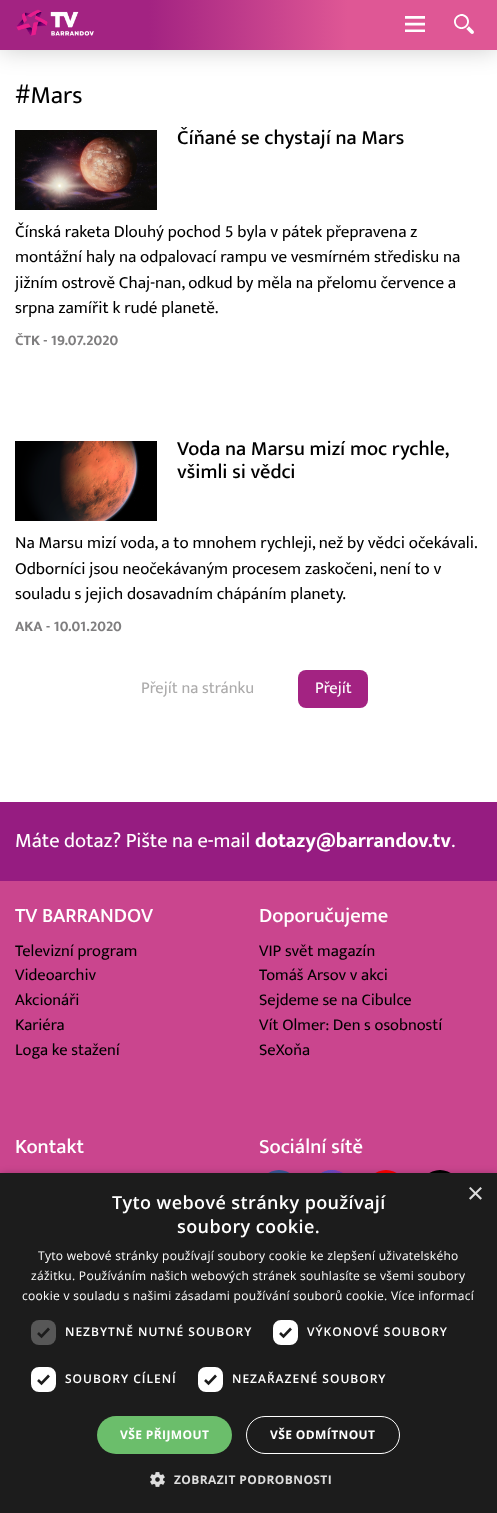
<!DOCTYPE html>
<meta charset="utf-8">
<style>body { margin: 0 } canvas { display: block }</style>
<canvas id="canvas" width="497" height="1513"></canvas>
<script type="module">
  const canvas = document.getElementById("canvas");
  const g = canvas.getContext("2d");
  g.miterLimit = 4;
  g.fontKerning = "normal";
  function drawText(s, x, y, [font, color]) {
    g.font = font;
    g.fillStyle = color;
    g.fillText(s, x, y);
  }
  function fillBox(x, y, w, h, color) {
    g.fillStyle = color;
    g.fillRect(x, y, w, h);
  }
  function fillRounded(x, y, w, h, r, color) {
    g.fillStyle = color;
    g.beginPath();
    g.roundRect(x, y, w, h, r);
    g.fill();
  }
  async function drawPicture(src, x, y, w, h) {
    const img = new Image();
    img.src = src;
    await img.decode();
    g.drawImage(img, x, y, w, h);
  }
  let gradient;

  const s1 = ["25px Mukta", "#000000"];
  const s2 = ["500 20.4px Mukta", "#000000"];
  const s3 = ["17.05px Mukta", "#000000"];
  const s4 = ["bold 14.75px Mukta", "#7F7E7F"];
  const s5 = ["16.5px Mukta", "#ACABAB"];
  const s6 = ["16.5px Mukta", "#FFFFFF"];
  const s7 = ["20.5px Mukta", "#FFFFFF"];
  const s8 = ["bold 20.5px Mukta", "#FFFFFF"];
  const s9 = ["500 20.5px Mukta", "#FFFFFF"];
  const s10 = ["16.5px Mukta", "#000000"];
  const s11 = ["29px Liberation Sans", "#DDDDDD"];
  const s12 = ["600 18px Open Sans", "#FFFFFF"];
  const s13 = ["12px Open Sans", "#FFFFFF"];
  const s14 = ["600 12px Open Sans", "#FFFFFF"];
  const s15 = ["bold 12px Open Sans", "#FFFFFF"];
  const s16 = ["bold 12px Open Sans", "#DDDDDD"];

  fillBox(0, 0, 497, 1513, "#FFFFFF");
  g.fillStyle = "rgba(0, 0, 0, 0.2)";
  g.filter = "blur(12px)";
  g.beginPath();
  g.rect(0, 0, 497, 50);
  g.fill();
  g.filter = "none";
  gradient = g.createLinearGradient(0, 25, 497, 25);
  gradient.addColorStop(0.3, "#A32382");
  gradient.addColorStop(0.7, "#DF5795");
  g.fillStyle = gradient;
  g.fillRect(0, 0, 497, 50);
  await drawPicture("pic1.png", 16, 9, 78, 27);
  await drawPicture("pic2.png", 405, 16, 20, 16);
  await drawPicture("pic3.png", 454, 14, 20, 20);
  drawText("#Mars", 15, 103, s1);
  drawText("Číňané se chystají na Mars", 177, 144, s2);
  drawText("Čínská raketa Dlouhý pochod 5 byla v pátek přepravena z", 15, 237, s3);
  drawText("montážní haly na odpalovací rampu ve vesmírném středisku na", 15, 262, s3);
  drawText("jižním ostrově Chaj-nan, odkud by měla na přelomu července a", 15, 288, s3);
  drawText("srpna zamířit k rudé planetě.", 15, 313, s3);
  await drawPicture("pic4.png", 15, 130, 142, 80);
  drawText("ČTK - 19.07.2020", 15, 345, s4);
  drawText("Voda na Marsu mizí moc rychle,", 177, 455, s2);
  drawText("všimli si vědci", 177, 478, s2);
  drawText("Na Marsu mizí voda, a to mnohem rychleji, než by vědci očekávali.", 15, 548, s3);
  drawText("Odborníci jsou neočekávaným procesem zaskočeni, není to v", 15, 574, s3);
  drawText("souladu s jejich dosavadním chápáním planety.", 15, 599, s3);
  await drawPicture("pic5.png", 15, 441, 142, 80);
  drawText("AKA - 10.01.2020", 15, 631, s4);
  drawText("Přejít na stránku", 141, 693, s5);
  fillRounded(298, 670, 70, 38, 8, "#A32382");
  drawText("Přejít", 315, 693, s6);
  fillBox(0, 802, 497, 79, "#961C81");
  drawText("Máte dotaz? Pište na e-mail", 15, 847, s7);
  drawText("dotazy@barrandov.tv", 255, 847, s8);
  drawText(".", 451, 847, s7);
  fillBox(0, 881, 497, 292, "#CA458E");
  drawText("TV BARRANDOV", 15, 922, s9);
  drawText("Televizní program", 15, 956, s10);
  drawText("Videoarchiv", 15, 980, s10);
  drawText("Akcionáři", 15, 1005, s10);
  drawText("Kariéra", 15, 1030, s10);
  drawText("Loga ke stažení", 15, 1055, s10);
  drawText("Doporučujeme", 259, 922, s9);
  drawText("VIP svět magazín", 259, 956, s10);
  drawText("Tomáš Arsov v akci", 259, 980, s10);
  drawText("Sejdeme se na Cibulce", 259, 1005, s10);
  drawText("Vít Olmer: Den s osobností", 259, 1030, s10);
  drawText("SeXoňa", 259, 1055, s10);
  drawText("Kontakt", 15, 1153, s9);
  drawText("Sociální sítě", 259, 1153, s9);
  g.fillStyle = "#3B5998";
  g.beginPath();
  g.arc(279, 1190, 20, 0, Math.PI * 2);
  g.fill();
  gradient = g.createLinearGradient(332, 1170, 332, 1210);
  gradient.addColorStop(0, "#6559CA");
  gradient.addColorStop(0.3, "#BC318F");
  gradient.addColorStop(0.5, "#E33F5F");
  gradient.addColorStop(0.7, "#F77638");
  gradient.addColorStop(1, "#FEC66D");
  g.fillStyle = gradient;
  g.beginPath();
  g.arc(332, 1190, 20, 0, Math.PI * 2);
  g.fill();
  gradient = g.createRadialGradient(352, 1210, 0, 352, 1210, 57);
  gradient.addColorStop(0, "#D9317A");
  gradient.addColorStop(1, "rgba(217, 49, 122, 0)");
  g.fillStyle = gradient;
  g.beginPath();
  g.arc(332, 1190, 20, 0, Math.PI * 2);
  g.fill();
  gradient = g.createRadialGradient(336, 581, 0, 336, 581, 34);
  gradient.addColorStop(0, "#893DC2");
  gradient.addColorStop(0.5, "rgba(137, 61, 194, 0)");
  g.fillStyle = gradient;
  g.beginPath();
  g.arc(332, 1190, 20, 0, Math.PI * 2);
  g.save();
  g.clip();
  g.scale(1, 68 / 34);
  g.fillRect(0, 0, 497, 757);
  g.restore();
  gradient = g.createRadialGradient(352, 1170, 0, 352, 1170, 57);
  gradient.addColorStop(0, "#893DC2");
  gradient.addColorStop(0.5, "rgba(137, 61, 194, 0)");
  g.fillStyle = gradient;
  g.beginPath();
  g.arc(332, 1190, 20, 0, Math.PI * 2);
  g.fill();
  gradient = g.createRadialGradient(320, 608.82, 0, 320, 608.82, 45);
  gradient.addColorStop(0, "#5258CF");
  gradient.addColorStop(0.5, "rgba(82, 88, 207, 0)");
  g.fillStyle = gradient;
  g.beginPath();
  g.arc(332, 1190, 20, 0, Math.PI * 2);
  g.save();
  g.clip();
  g.scale(1, 85 / 45);
  g.fillRect(0, 0, 497, 801);
  g.restore();
  gradient = g.createRadialGradient(312, 931.27, 0, 312, 931.27, 57);
  gradient.addColorStop(0, "#5258CF");
  gradient.addColorStop(0.5, "rgba(82, 88, 207, 0)");
  g.fillStyle = gradient;
  g.beginPath();
  g.arc(332, 1190, 20, 0, Math.PI * 2);
  g.save();
  g.clip();
  g.scale(1, 71 / 57);
  g.fillRect(0, 0, 497, 1215);
  g.restore();
  g.fillStyle = "#FF0000";
  g.beginPath();
  g.arc(386, 1190, 20, 0, Math.PI * 2);
  g.fill();
  g.fillStyle = "#000000";
  g.beginPath();
  g.arc(440, 1190, 20, 0, Math.PI * 2);
  g.fill();
  g.fillStyle = "rgba(0, 0, 0, 0.35)";
  g.filter = "blur(4px)";
  g.beginPath();
  g.rect(1, 1175, 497, 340);
  g.fill();
  g.filter = "none";
  fillBox(0, 1173, 497, 340, "#1C1C1C");
  drawText("×", 467, 1203, s11);
  g.letterSpacing = "0.4px";
  drawText("Tyto webové stránky používají", 112, 1209, s12);
  drawText("soubory cookie.", 177, 1233, s12);
  g.letterSpacing = "0.3px";
  drawText("Tyto webové stránky používají soubory cookie ke zlepšení uživatelského", 38, 1260, s13);
  drawText("zážitku. Používáním našich webových stránek souhlasíte se všemi soubory", 31, 1280, s13);
  drawText("cookie v souladu s našimi zásadami používání souborů cookie. Více informací", 22, 1300, s13);
  fillRounded(31, 1320, 25, 25, 8, "#575757");
  g.beginPath();
  g.moveTo(38, 1333);
  g.lineTo(41.5, 1336.5);
  g.lineTo(49, 1328.5);
  g.strokeStyle = "#1C1C1C";
  g.lineWidth = 2.6;
  g.stroke();
  g.letterSpacing = "1px";
  drawText("NEZBYTNĚ NUTNÉ SOUBORY", 65, 1336, s14);
  g.beginPath();
  g.roundRect(274, 1321, 23, 23, 7);
  g.fill();
  g.strokeStyle = "#FFFFFF";
  g.lineWidth = 2;
  g.stroke();
  g.beginPath();
  g.moveTo(280, 1333);
  g.lineTo(283.5, 1336.5);
  g.lineTo(291, 1328.5);
  g.strokeStyle = "#1C1C1C";
  g.lineWidth = 2.6;
  g.stroke();
  drawText("VÝKONOVÉ SOUBORY", 307, 1336, s14);
  g.beginPath();
  g.roundRect(32, 1368, 23, 23, 7);
  g.fill();
  g.strokeStyle = "#FFFFFF";
  g.lineWidth = 2;
  g.stroke();
  g.beginPath();
  g.moveTo(38, 1380);
  g.lineTo(41.5, 1383.5);
  g.lineTo(49, 1375.5);
  g.strokeStyle = "#1C1C1C";
  g.lineWidth = 2.6;
  g.stroke();
  drawText("SOUBORY CÍLENÍ", 65, 1383, s14);
  g.beginPath();
  g.roundRect(199, 1368, 23, 23, 7);
  g.fill();
  g.strokeStyle = "#FFFFFF";
  g.lineWidth = 2;
  g.stroke();
  g.beginPath();
  g.moveTo(205, 1380);
  g.lineTo(208.5, 1383.5);
  g.lineTo(216, 1375.5);
  g.strokeStyle = "#1C1C1C";
  g.lineWidth = 2.6;
  g.stroke();
  drawText("NEZAŘAZENÉ SOUBORY", 232, 1383, s14);
  fillRounded(97, 1416, 135, 38, 19, "#6BBE6B");
  g.letterSpacing = "0.4px";
  drawText("VŠE PŘIJMOUT", 120, 1439, s15);
  g.beginPath();
  g.roundRect(246.5, 1416.5, 153, 37, 18.5);
  g.strokeStyle = "#FFFFFF";
  g.lineWidth = 1;
  g.stroke();
  drawText("VŠE ODMÍTNOUT", 270, 1439, s15);
  await drawPicture("pic6.png", 150, 1472, 15, 15);
  drawText("ZOBRAZIT PODROBNOSTI", 174, 1484, s16);
</script>
